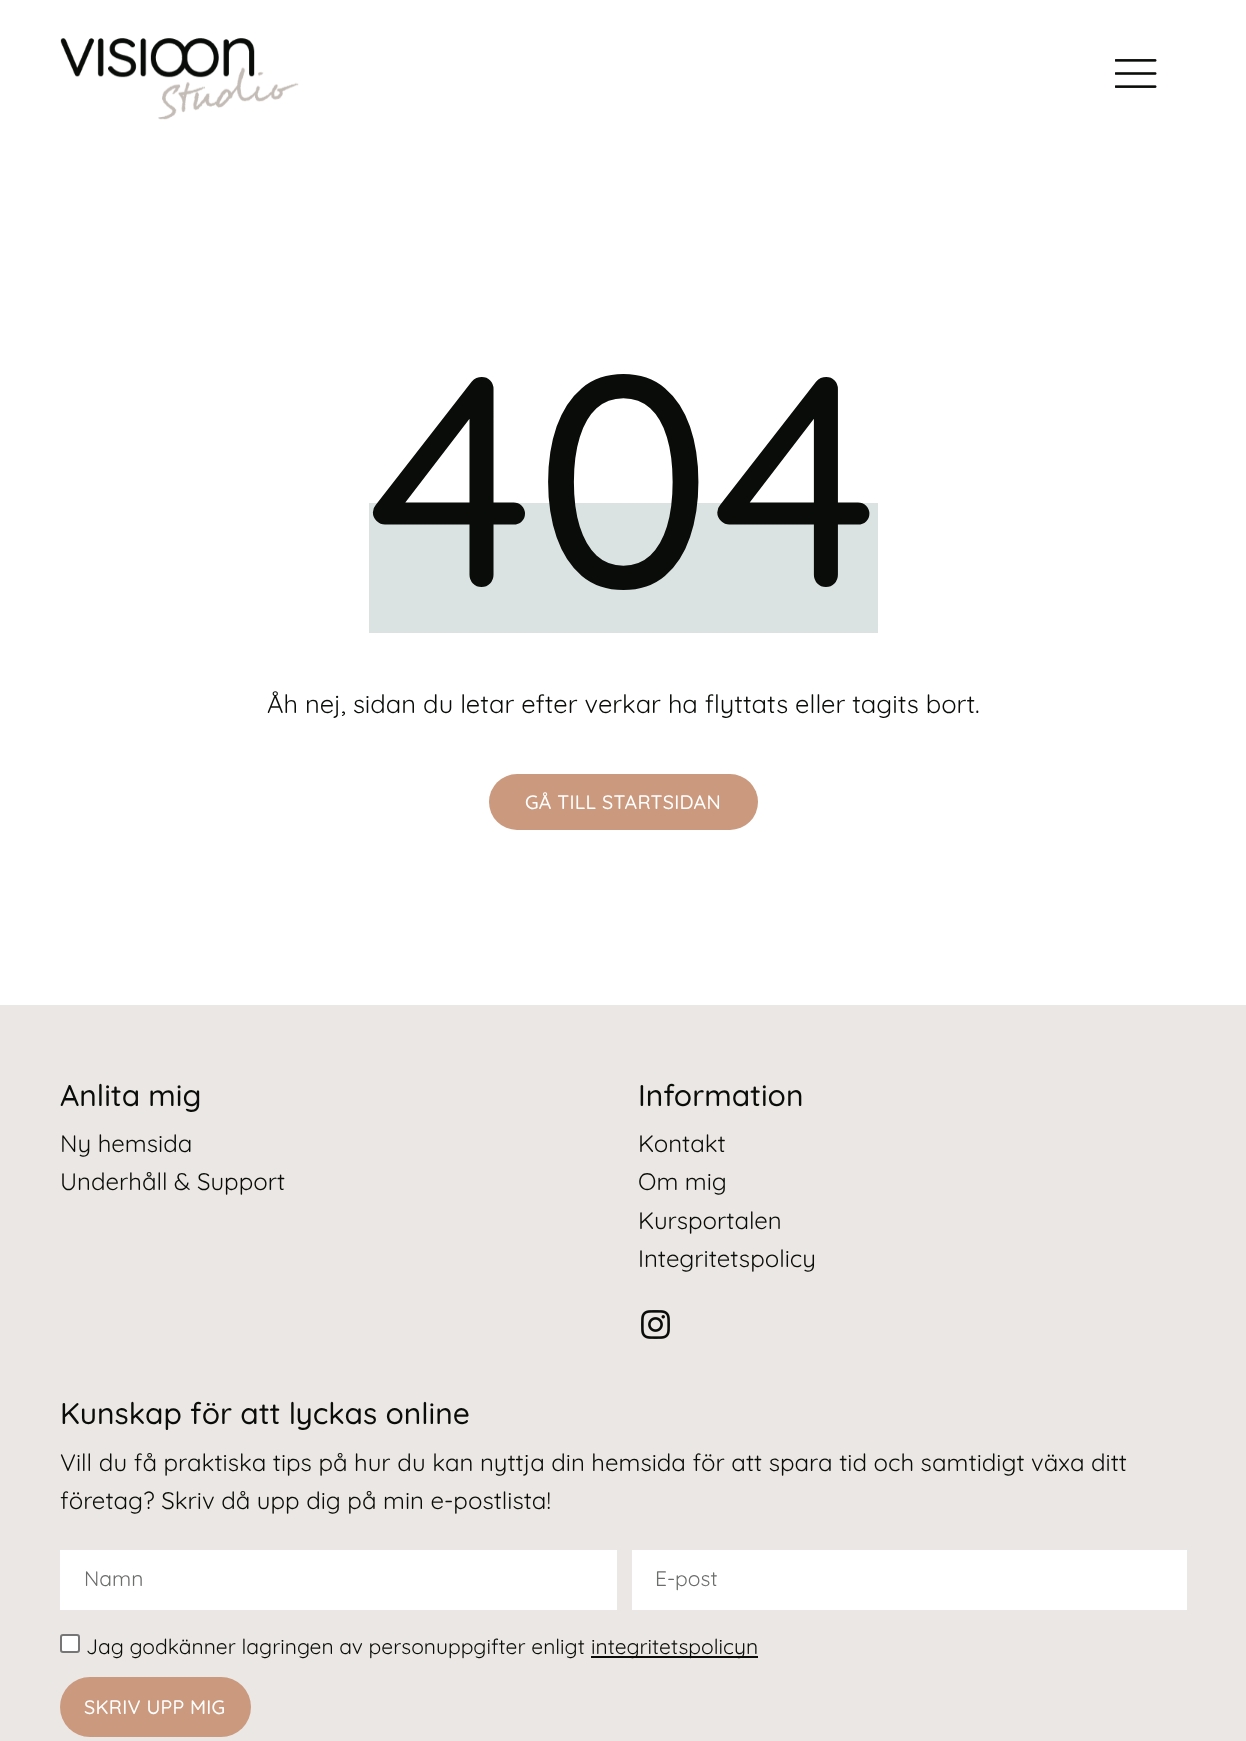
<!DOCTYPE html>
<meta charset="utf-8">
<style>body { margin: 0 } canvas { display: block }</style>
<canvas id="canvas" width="1246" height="1741"></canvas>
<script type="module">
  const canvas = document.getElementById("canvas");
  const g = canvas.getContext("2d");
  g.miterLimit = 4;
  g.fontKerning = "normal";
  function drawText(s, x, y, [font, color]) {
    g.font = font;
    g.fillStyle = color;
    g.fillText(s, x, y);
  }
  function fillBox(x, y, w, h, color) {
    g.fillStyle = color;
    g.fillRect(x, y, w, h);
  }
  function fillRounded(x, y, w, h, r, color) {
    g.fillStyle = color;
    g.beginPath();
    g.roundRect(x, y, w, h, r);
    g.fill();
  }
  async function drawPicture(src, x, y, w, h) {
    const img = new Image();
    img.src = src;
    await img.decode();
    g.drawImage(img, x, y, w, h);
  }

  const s1 = ["500 300px Quicksand", "#090C08"];
  const s2 = ["25.5px Quicksand", "#090C08"];
  const s3 = ["500 19.5px Quicksand", "#FFFFFF"];
  const s4 = ["500 30px Quicksand", "#090C08"];
  const s5 = ["24px Quicksand", "#090C08"];
  const s6 = ["21px Quicksand", "#6B6D6B"];
  const s7 = ["21px Quicksand", "#090C08"];

  fillBox(0, 0, 1246, 1741, "#FFFFFF");
  await drawPicture("pic1.png", 60, 38, 239, 82);
  await drawPicture("pic2.png", 1115, 59, 42, 29);
  fillBox(369, 503, 509, 130, "#DAE3E2");
  drawText("404", 369, 587, s1);
  drawText("Åh nej, sidan du letar efter verkar ha flyttats eller tagits bort.", 267, 713, s2);
  fillRounded(489, 774, 269, 56, 28, "#CB997E");
  g.letterSpacing = "0.25px";
  drawText("GÅ TILL STARTSIDAN", 525, 809, s3);
  fillBox(0, 1005, 1246, 736, "#EBE7E4");
  g.letterSpacing = "0px";
  drawText("Anlita mig", 60, 1106, s4);
  drawText("Ny hemsida", 60, 1152, s5);
  drawText("Underhåll & Support", 60, 1190, s5);
  drawText("Information", 638, 1106, s4);
  drawText("Kontakt", 638, 1152, s5);
  drawText("Om mig", 638, 1190, s5);
  drawText("Kursportalen", 638, 1229, s5);
  drawText("Integritetspolicy", 638, 1267, s5);
  await drawPicture("pic3.png", 641, 1310, 29, 29);
  drawText("Kunskap för att lyckas online", 60, 1424, s4);
  drawText("Vill du få praktiska tips på hur du kan nyttja din hemsida för att spara tid och samtidigt växa ditt", 60, 1471, s5);
  drawText("företag? Skriv då upp dig på min e-postlista!", 60, 1509, s5);
  fillBox(60, 1550, 557, 60, "#FFFFFF");
  drawText("Namn", 84, 1586, s6);
  fillBox(632, 1550, 555, 60, "#FFFFFF");
  drawText("E-post", 655, 1586, s6);
  g.fillStyle = "#FFFFFF";
  g.beginPath();
  g.roundRect(61, 1635, 18, 17, 2);
  g.fill();
  g.strokeStyle = "#767676";
  g.lineWidth = 2;
  g.stroke();
  drawText("Jag godkänner lagringen av personuppgifter enligt", 86, 1654, s7);
  fillBox(591, 1656, 167, 2, "#090C08");
  drawText("integritetspolicyn", 591, 1654, s7);
  fillRounded(60, 1677, 191, 60, 30, "#CB997E");
  g.letterSpacing = "0.25px";
  drawText("SKRIV UPP MIG", 84, 1714, s3);
</script>
